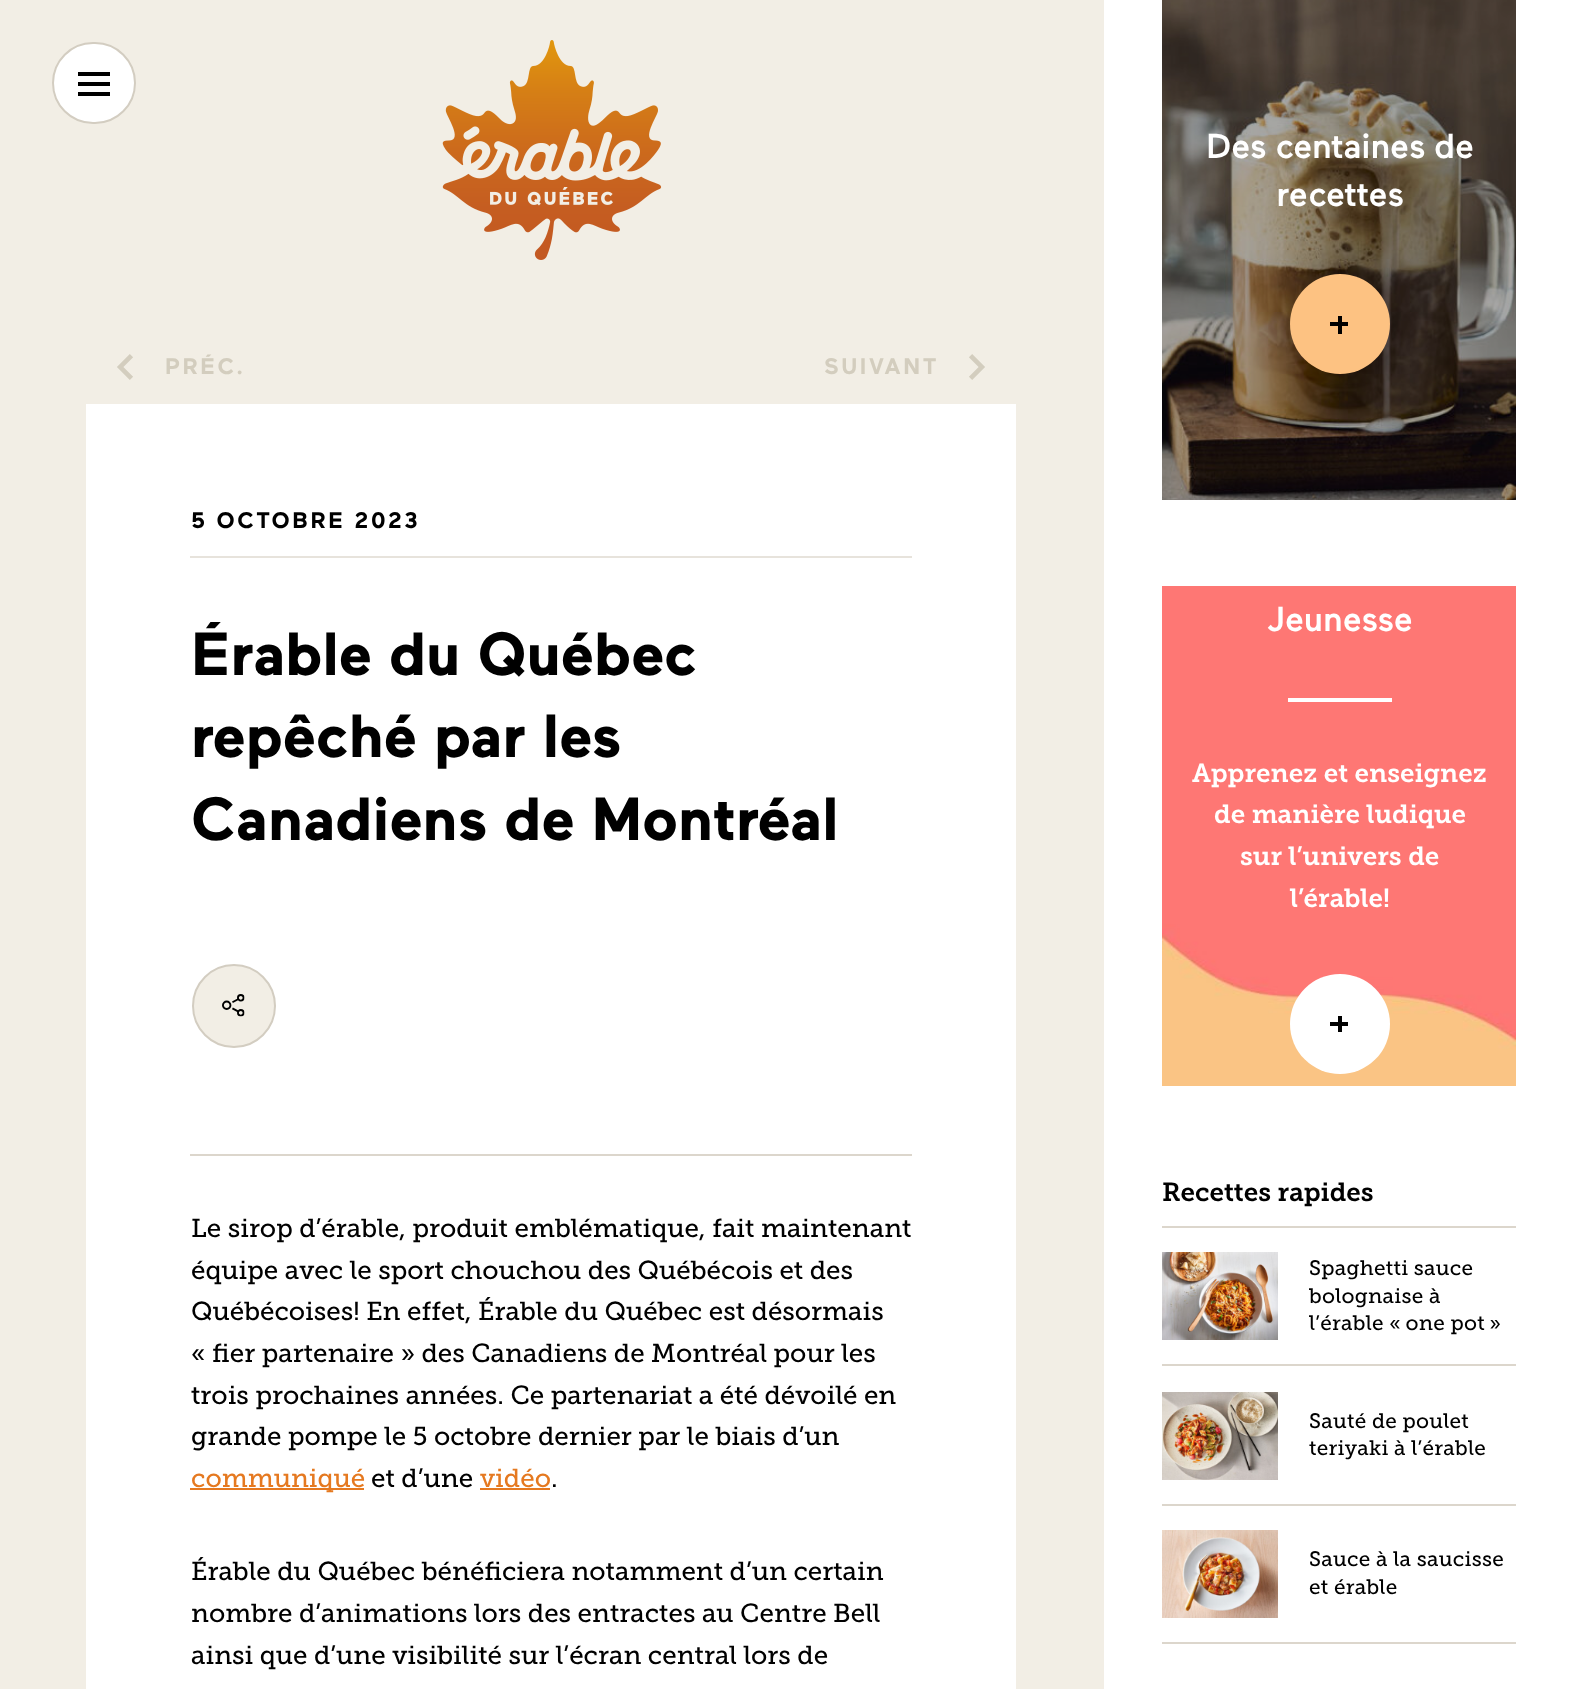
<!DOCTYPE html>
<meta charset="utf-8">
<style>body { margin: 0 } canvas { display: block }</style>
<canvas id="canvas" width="1575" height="1689"></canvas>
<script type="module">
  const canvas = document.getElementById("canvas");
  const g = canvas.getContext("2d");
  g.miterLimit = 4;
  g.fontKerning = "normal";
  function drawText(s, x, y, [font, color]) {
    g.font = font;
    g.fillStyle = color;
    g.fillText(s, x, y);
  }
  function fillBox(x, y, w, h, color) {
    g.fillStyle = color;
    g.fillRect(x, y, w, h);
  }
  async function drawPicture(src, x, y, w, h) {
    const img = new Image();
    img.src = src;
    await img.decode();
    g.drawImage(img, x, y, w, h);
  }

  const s1 = ["bold 22.5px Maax", "#D3CDBE"];
  const s2 = ["bold 22.5px Maax", "#000000"];
  const s3 = ["bold 60.75px Maax", "#000000"];
  const s4 = ["26px 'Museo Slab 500'", "#000000"];
  const s5 = ["26px 'Museo Slab 500'", "#E57920"];
  const s6 = ["500 34.75px Maax", "#FFFFFF"];
  const s7 = ["600 26px 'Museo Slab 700'", "#FFFFFF"];
  const s8 = ["600 26px 'Museo Slab 700'", "#000000"];
  const s9 = ["20.75px 'Museo Slab 500'", "#000000"];

  fillBox(0, 0, 1575, 1689, "#F2EEE5");
  g.fillStyle = "#FFFFFF";
  g.beginPath();
  g.roundRect(53, 43, 82, 80, 40);
  g.fill();
  g.strokeStyle = "#D3CDC1";
  g.lineWidth = 2;
  g.stroke();
  fillBox(78, 82, 32, 4, "#000000");
  fillBox(78, 72, 32, 4, "#000000");
  fillBox(78, 92, 32, 4, "#000000");
  await drawPicture("pic1.png", 442, 40, 220, 220);
  await drawPicture("pic2.png", 117, 354, 16, 26);
  g.letterSpacing = "2.6px";
  drawText("PRÉC.", 165, 374, s1);
  drawText("SUIVANT", 824, 374, s1);
  await drawPicture("pic3.png", 969, 354, 16, 26);
  fillBox(86, 404, 930, 1285, "#FFFFFF");
  fillBox(190, 556, 722, 2, "#E7E3DC");
  drawText("5 OCTOBRE 2023", 191, 528, s2);
  g.letterSpacing = "0px";
  drawText("Érable du Québec", 191, 675, s3);
  drawText("repêché par les", 191, 757, s3);
  drawText("Canadiens de Montréal", 191, 840, s3);
  g.fillStyle = "#F2EEE5";
  g.beginPath();
  g.arc(234, 1006, 41, 0, Math.PI * 2);
  g.fill();
  g.stroke();
  await drawPicture("pic4.png", 222, 994, 23, 23);
  fillBox(190, 1154, 722, 2, "#DCD6CC");
  drawText("Le sirop d’érable, produit emblématique, fait maintenant", 191, 1237, s4);
  drawText("équipe avec le sport chouchou des Québécois et des", 191, 1279, s4);
  drawText("Québécoises! En effet, Érable du Québec est désormais", 191, 1320, s4);
  drawText("« fier partenaire » des Canadiens de Montréal pour les", 191, 1362, s4);
  drawText("trois prochaines années. Ce partenariat a été dévoilé en", 191, 1404, s4);
  drawText("grande pompe le 5 octobre dernier par le biais d’un", 191, 1445, s4);
  fillBox(190, 1488, 174, 2, "#E57920");
  drawText("communiqué", 191, 1487, s5);
  drawText("et d’une", 371, 1487, s4);
  drawText("vidéo", 480, 1487, s5);
  fillBox(480, 1488, 70, 2, "#E57920");
  drawText(".", 551, 1487, s4);
  drawText("Érable du Québec bénéficiera notamment d’un certain", 191, 1580, s4);
  drawText("nombre d’animations lors des entractes au Centre Bell", 191, 1622, s4);
  drawText("ainsi que d’une visibilité sur l’écran central lors de", 191, 1664, s4);
  fillBox(1104, 0, 471, 1689, "#FFFFFF");
  await drawPicture("pic5.png", 1162, 0, 354, 500);
  drawText("Des centaines de", 1206, 158, s6);
  drawText("recettes", 1276, 206, s6);
  g.fillStyle = "#FDC282";
  g.beginPath();
  g.arc(1340, 324, 50, 0, Math.PI * 2);
  g.fill();
  fillBox(1330, 322, 18, 4, "#000000");
  fillBox(1338, 316, 4, 18, "#000000");
  await drawPicture("pic6.png", 1162, 586, 354, 500);
  drawText("Jeunesse", 1267, 631, s6);
  fillBox(1288, 698, 104, 4, "#FFFFFF");
  drawText("Apprenez et enseignez", 1192, 782, s7);
  drawText("de manière ludique", 1214, 823, s7);
  drawText("sur l’univers de", 1240, 865, s7);
  drawText("l’érable!", 1290, 907, s7);
  g.beginPath();
  g.arc(1340, 1024, 50, 0, Math.PI * 2);
  g.fill();
  fillBox(1330, 1022, 18, 4, "#000000");
  fillBox(1338, 1016, 4, 16, "#000000");
  drawText("Recettes rapides", 1162, 1201, s8);
  fillBox(1162, 1226, 354, 2, "#DCD6CC");
  fillBox(1162, 1364, 354, 2, "#DCD6CC");
  await drawPicture("pic7.png", 1162, 1252, 116, 88);
  g.letterSpacing = "0.25px";
  drawText("Spaghetti sauce", 1309, 1275, s9);
  drawText("bolognaise à", 1309, 1303, s9);
  drawText("l’érable « one pot »", 1309, 1330, s9);
  fillBox(1162, 1504, 354, 2, "#DCD6CC");
  await drawPicture("pic8.png", 1162, 1392, 116, 88);
  drawText("Sauté de poulet", 1309, 1428, s9);
  drawText("teriyaki à l’érable", 1309, 1455, s9);
  fillBox(1162, 1642, 354, 2, "#DCD6CC");
  await drawPicture("pic9.png", 1162, 1530, 116, 88);
  drawText("Sauce à la saucisse", 1309, 1566, s9);
  drawText("et érable", 1309, 1594, s9);
</script>
